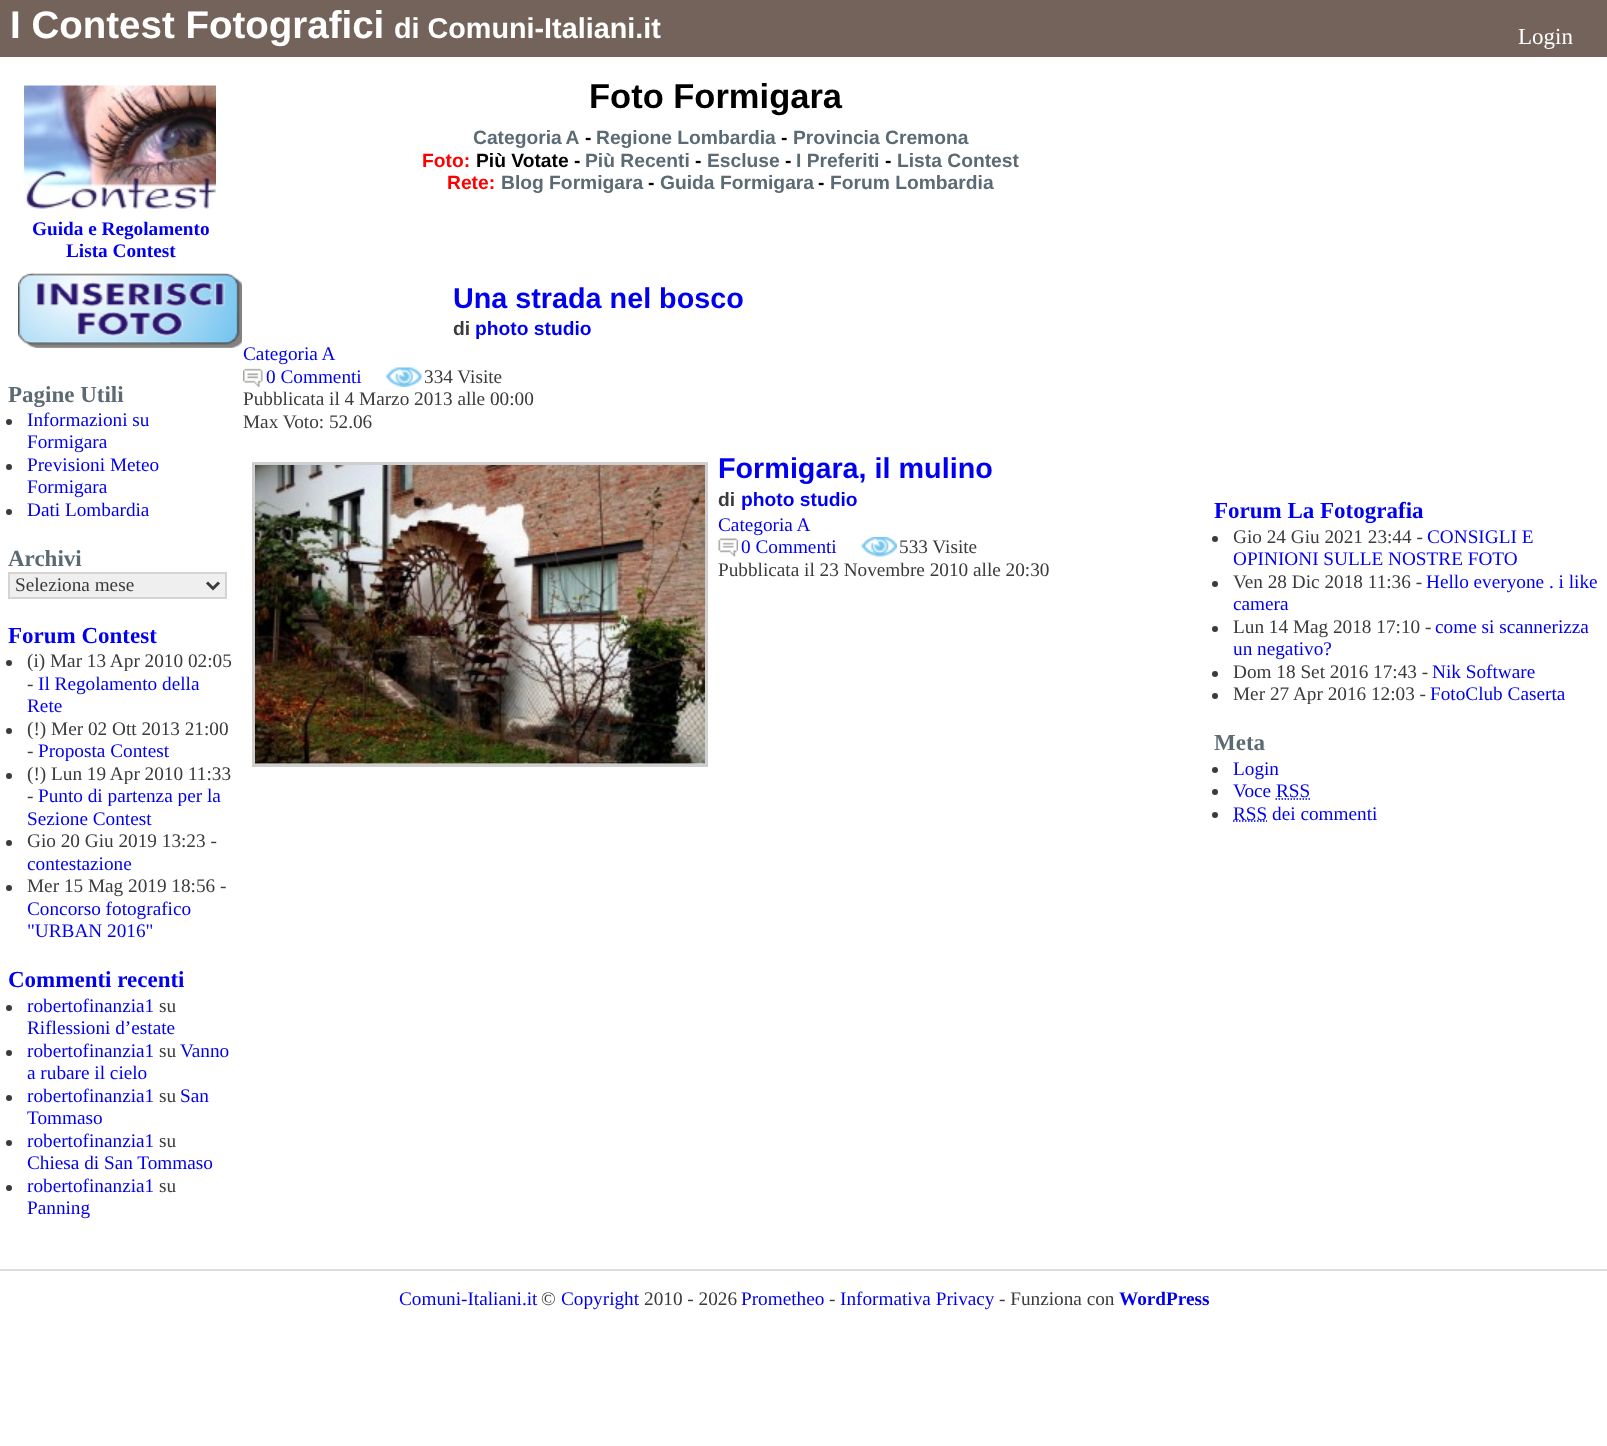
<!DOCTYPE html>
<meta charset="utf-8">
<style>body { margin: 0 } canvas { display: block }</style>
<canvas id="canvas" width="1607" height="1446"></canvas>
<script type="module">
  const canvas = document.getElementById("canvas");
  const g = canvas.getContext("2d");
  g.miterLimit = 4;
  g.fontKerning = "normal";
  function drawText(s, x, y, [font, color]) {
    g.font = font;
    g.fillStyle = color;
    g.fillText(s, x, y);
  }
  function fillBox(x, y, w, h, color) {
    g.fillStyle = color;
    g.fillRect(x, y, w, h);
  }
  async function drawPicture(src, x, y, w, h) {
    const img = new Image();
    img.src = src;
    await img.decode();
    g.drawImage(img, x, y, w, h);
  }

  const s1 = ["bold 38.5px Liberation Sans", "#FFFFFF"];
  const s2 = ["bold 28.75px Liberation Sans", "#FFFFFF"];
  const s3 = ["23px Liberation Serif", "#FFFFFF"];
  const s4 = ["bold 19.25px Liberation Serif", "#0000EE"];
  const s5 = ["bold 23px Liberation Serif", "#5C6A74"];
  const s6 = ["19.25px Liberation Serif", "#0000EE"];
  const s7 = ["19.25px Liberation Serif", "#3B3B3B"];
  const s8 = ["bold 23px Liberation Serif", "#0000EE"];
  const s9 = ["bold 34.5px Liberation Sans", "#000000"];
  const s10 = ["bold 19.25px Liberation Sans", "#5C6A74"];
  const s11 = ["bold 19.25px Liberation Sans", "#000000"];
  const s12 = ["bold 19.25px Liberation Sans", "#FF0000"];
  const s13 = ["bold 28.75px Liberation Sans", "#0000EE"];
  const s14 = ["bold 19.25px Liberation Sans", "#3B3B3B"];
  const s15 = ["bold 19.25px Liberation Sans", "#0000EE"];

  fillBox(0, 0, 1607, 1446, "#FFFFFF");
  fillBox(0, 0, 1607, 57, "#73635A");
  drawText("I Contest Fotografici", 10, 38, s1);
  drawText("di Comuni-Italiani.it", 394, 38, s2);
  drawText("Login", 1518, 44, s3);
  await drawPicture("pic1.png", 24, 85, 192, 124);
  drawText("Guida e Regolamento", 32, 235, s4);
  drawText("Lista Contest", 66, 257, s4);
  await drawPicture("pic2.png", 18, 273, 224, 75);
  drawText("Pagine Utili", 8, 402, s5);
  g.fillStyle = "#3B3B3B";
  g.beginPath();
  g.arc(9, 422, 3, 0, Math.PI * 2);
  g.fill();
  drawText("Informazioni su", 27, 426, s6);
  drawText("Formigara", 27, 448, s6);
  g.fillStyle = "#3B3B3B";
  g.beginPath();
  g.arc(9, 467, 3, 0, Math.PI * 2);
  g.fill();
  drawText("Previsioni Meteo", 27, 471, s6);
  drawText("Formigara", 27, 493, s6);
  g.fillStyle = "#3B3B3B";
  g.beginPath();
  g.arc(9, 512, 3, 0, Math.PI * 2);
  g.fill();
  drawText("Dati Lombardia", 27, 516, s6);
  drawText("Archivi", 8, 566, s5);
  g.fillStyle = "#EFEFEF";
  g.beginPath();
  g.rect(9, 573, 217, 25);
  g.fill();
  g.strokeStyle = "#D6D3D3";
  g.lineWidth = 2;
  g.stroke();
  g.beginPath();
  g.moveTo(207, 582.5);
  g.lineTo(213, 588.5);
  g.lineTo(219, 582.5);
  g.strokeStyle = "#3B3B3B";
  g.lineWidth = 3;
  g.stroke();
  drawText("Seleziona mese", 15, 591, s7);
  drawText("Forum Contest", 8, 643, s8);
  g.fillStyle = "#3B3B3B";
  g.beginPath();
  g.arc(9, 663, 3, 0, Math.PI * 2);
  g.fill();
  drawText("(i) Mar 13 Apr 2010 02:05", 27, 667, s7);
  drawText("-", 27, 690, s7);
  drawText("Il Regolamento della", 38, 690, s6);
  drawText("Rete", 27, 712, s6);
  g.fillStyle = "#3B3B3B";
  g.beginPath();
  g.arc(9, 731, 3, 0, Math.PI * 2);
  g.fill();
  drawText("(!) Mer 02 Ott 2013 21:00", 27, 735, s7);
  drawText("-", 27, 757, s7);
  drawText("Proposta Contest", 38, 757, s6);
  g.fillStyle = "#3B3B3B";
  g.beginPath();
  g.arc(9, 776, 3, 0, Math.PI * 2);
  g.fill();
  drawText("(!) Lun 19 Apr 2010 11:33", 27, 780, s7);
  drawText("-", 27, 802, s7);
  drawText("Punto di partenza per la", 38, 802, s6);
  drawText("Sezione Contest", 27, 825, s6);
  g.fillStyle = "#3B3B3B";
  g.beginPath();
  g.arc(9, 843, 3, 0, Math.PI * 2);
  g.fill();
  drawText("Gio 20 Giu 2019 13:23 -", 27, 847, s7);
  drawText("contestazione", 27, 870, s6);
  g.fillStyle = "#3B3B3B";
  g.beginPath();
  g.arc(9, 888, 3, 0, Math.PI * 2);
  g.fill();
  drawText("Mer 15 Mag 2019 18:56 -", 27, 892, s7);
  drawText("Concorso fotografico", 27, 915, s6);
  drawText("\"URBAN 2016\"", 27, 937, s6);
  drawText("Commenti recenti", 8, 987, s8);
  g.fillStyle = "#3B3B3B";
  g.beginPath();
  g.arc(9, 1008, 3, 0, Math.PI * 2);
  g.fill();
  drawText("robertofinanzia1", 27, 1012, s6);
  drawText("su", 159, 1012, s7);
  drawText("Riflessioni d’estate", 27, 1034, s6);
  g.fillStyle = "#3B3B3B";
  g.beginPath();
  g.arc(9, 1053, 3, 0, Math.PI * 2);
  g.fill();
  drawText("robertofinanzia1", 27, 1057, s6);
  drawText("su", 159, 1057, s7);
  drawText("Vanno", 180, 1057, s6);
  drawText("a rubare il cielo", 27, 1079, s6);
  g.fillStyle = "#3B3B3B";
  g.beginPath();
  g.arc(9, 1098, 3, 0, Math.PI * 2);
  g.fill();
  drawText("robertofinanzia1", 27, 1102, s6);
  drawText("su", 159, 1102, s7);
  drawText("San", 180, 1102, s6);
  drawText("Tommaso", 27, 1124, s6);
  g.fillStyle = "#3B3B3B";
  g.beginPath();
  g.arc(9, 1143, 3, 0, Math.PI * 2);
  g.fill();
  drawText("robertofinanzia1", 27, 1147, s6);
  drawText("su", 159, 1147, s7);
  drawText("Chiesa di San Tommaso", 27, 1169, s6);
  g.fillStyle = "#3B3B3B";
  g.beginPath();
  g.arc(9, 1188, 3, 0, Math.PI * 2);
  g.fill();
  drawText("robertofinanzia1", 27, 1192, s6);
  drawText("su", 159, 1192, s7);
  drawText("Panning", 27, 1214, s6);
  drawText("Foto Formigara", 589, 108, s9);
  g.wordSpacing = "-1px";
  drawText("Categoria A", 473, 144, s10);
  g.wordSpacing = "0px";
  drawText("-", 585, 144, s11);
  drawText("Regione Lombardia", 596, 144, s10);
  drawText("-", 781, 144, s11);
  drawText("Provincia Cremona", 793, 144, s10);
  drawText("Foto:", 422, 167, s12);
  drawText("Più Votate -", 476, 167, s11);
  drawText("Più Recenti", 585, 167, s10);
  drawText("-", 695, 167, s11);
  drawText("Escluse", 707, 167, s10);
  drawText("-", 785, 167, s11);
  drawText("I Preferiti", 796, 167, s10);
  drawText("-", 885, 167, s11);
  drawText("Lista Contest", 897, 167, s10);
  drawText("Rete:", 447, 189, s12);
  drawText("Blog Formigara", 501, 189, s10);
  drawText("-", 648, 189, s11);
  drawText("Guida Formigara", 660, 189, s10);
  drawText("-", 818, 189, s11);
  drawText("Forum Lombardia", 830, 189, s10);
  drawText("Una strada nel bosco", 453, 308, s13);
  drawText("di", 453, 335, s14);
  drawText("photo studio", 475, 335, s15);
  drawText("Categoria A", 243, 360, s6);
  await drawPicture("pic3.png", 243, 368, 20, 19);
  drawText("0 Commenti", 266, 383, s6);
  await drawPicture("pic4.png", 385, 367, 37, 20);
  drawText("334 Visite", 424, 383, s7);
  drawText("Pubblicata il 4 Marzo 2013 alle 00:00", 243, 405, s7);
  drawText("Max Voto: 52.06", 243, 428, s7);
  g.strokeStyle = "#CFCFCF";
  g.strokeRect(253.5, 463.5, 453, 302);
  await drawPicture("pic5.png", 255, 465, 450, 299);
  drawText("Formigara, il mulino", 718, 478, s13);
  drawText("di", 718, 506, s14);
  drawText("photo studio", 741, 506, s15);
  drawText("Categoria A", 718, 531, s6);
  await drawPicture("pic6.png", 718, 538, 20, 19);
  drawText("0 Commenti", 741, 553, s6);
  await drawPicture("pic7.png", 861, 537, 36, 20);
  drawText("533 Visite", 899, 553, s7);
  drawText("Pubblicata il 23 Novembre 2010 alle 20:30", 718, 576, s7);
  drawText("Forum La Fotografia", 1214, 518, s8);
  g.fillStyle = "#3B3B3B";
  g.beginPath();
  g.arc(1215, 539, 3, 0, Math.PI * 2);
  g.fill();
  drawText("Gio 24 Giu 2021 23:44 -", 1233, 543, s7);
  drawText("CONSIGLI E", 1427, 543, s6);
  drawText("OPINIONI SULLE NOSTRE FOTO", 1233, 565, s6);
  g.fillStyle = "#3B3B3B";
  g.beginPath();
  g.arc(1215, 584, 3, 0, Math.PI * 2);
  g.fill();
  drawText("Ven 28 Dic 2018 11:36 -", 1233, 588, s7);
  drawText("Hello everyone . i like", 1426, 588, s6);
  drawText("camera", 1233, 610, s6);
  g.fillStyle = "#3B3B3B";
  g.beginPath();
  g.arc(1215, 629, 3, 0, Math.PI * 2);
  g.fill();
  drawText("Lun 14 Mag 2018 17:10 -", 1233, 633, s7);
  drawText("come si scannerizza", 1435, 633, s6);
  drawText("un negativo?", 1233, 655, s6);
  g.fillStyle = "#3B3B3B";
  g.beginPath();
  g.arc(1215, 674, 3, 0, Math.PI * 2);
  g.fill();
  drawText("Dom 18 Set 2016 17:43 -", 1233, 678, s7);
  drawText("Nik Software", 1432, 678, s6);
  g.fillStyle = "#3B3B3B";
  g.beginPath();
  g.arc(1215, 696, 3, 0, Math.PI * 2);
  g.fill();
  drawText("Mer 27 Apr 2016 12:03 -", 1233, 700, s7);
  drawText("FotoClub Caserta", 1430, 700, s6);
  drawText("Meta", 1214, 750, s5);
  g.fillStyle = "#3B3B3B";
  g.beginPath();
  g.arc(1215, 770, 3, 0, Math.PI * 2);
  g.fill();
  drawText("Login", 1233, 775, s6);
  g.fillStyle = "#3B3B3B";
  g.beginPath();
  g.arc(1215, 792, 3, 0, Math.PI * 2);
  g.fill();
  drawText("Voce RSS", 1233, 797, s6);
  g.beginPath();
  g.moveTo(1275.5, 799);
  g.lineTo(1310, 799);
  g.strokeStyle = "#0000EE";
  g.lineWidth = 1.5;
  g.setLineDash([1.5, 1.5]);
  g.stroke();
  g.fillStyle = "#3B3B3B";
  g.beginPath();
  g.arc(1215, 815, 3, 0, Math.PI * 2);
  g.fill();
  g.beginPath();
  g.moveTo(1233, 821);
  g.lineTo(1267, 821);
  g.stroke();
  drawText("RSS dei commenti", 1233, 820, s6);
  fillBox(0, 1269, 1607, 2, "#DDDDDD");
  drawText("Comuni-Italiani.it", 399, 1305, s6);
  drawText("©", 541, 1305, s7);
  drawText("Copyright", 561, 1305, s6);
  drawText("2010 - 2026", 644, 1305, s7);
  drawText("Prometheo", 741, 1305, s6);
  drawText("-", 829, 1305, s7);
  drawText("Informativa Privacy", 840, 1305, s6);
  drawText("- Funziona con", 999, 1305, s7);
  drawText("WordPress", 1119, 1305, s4);
</script>
